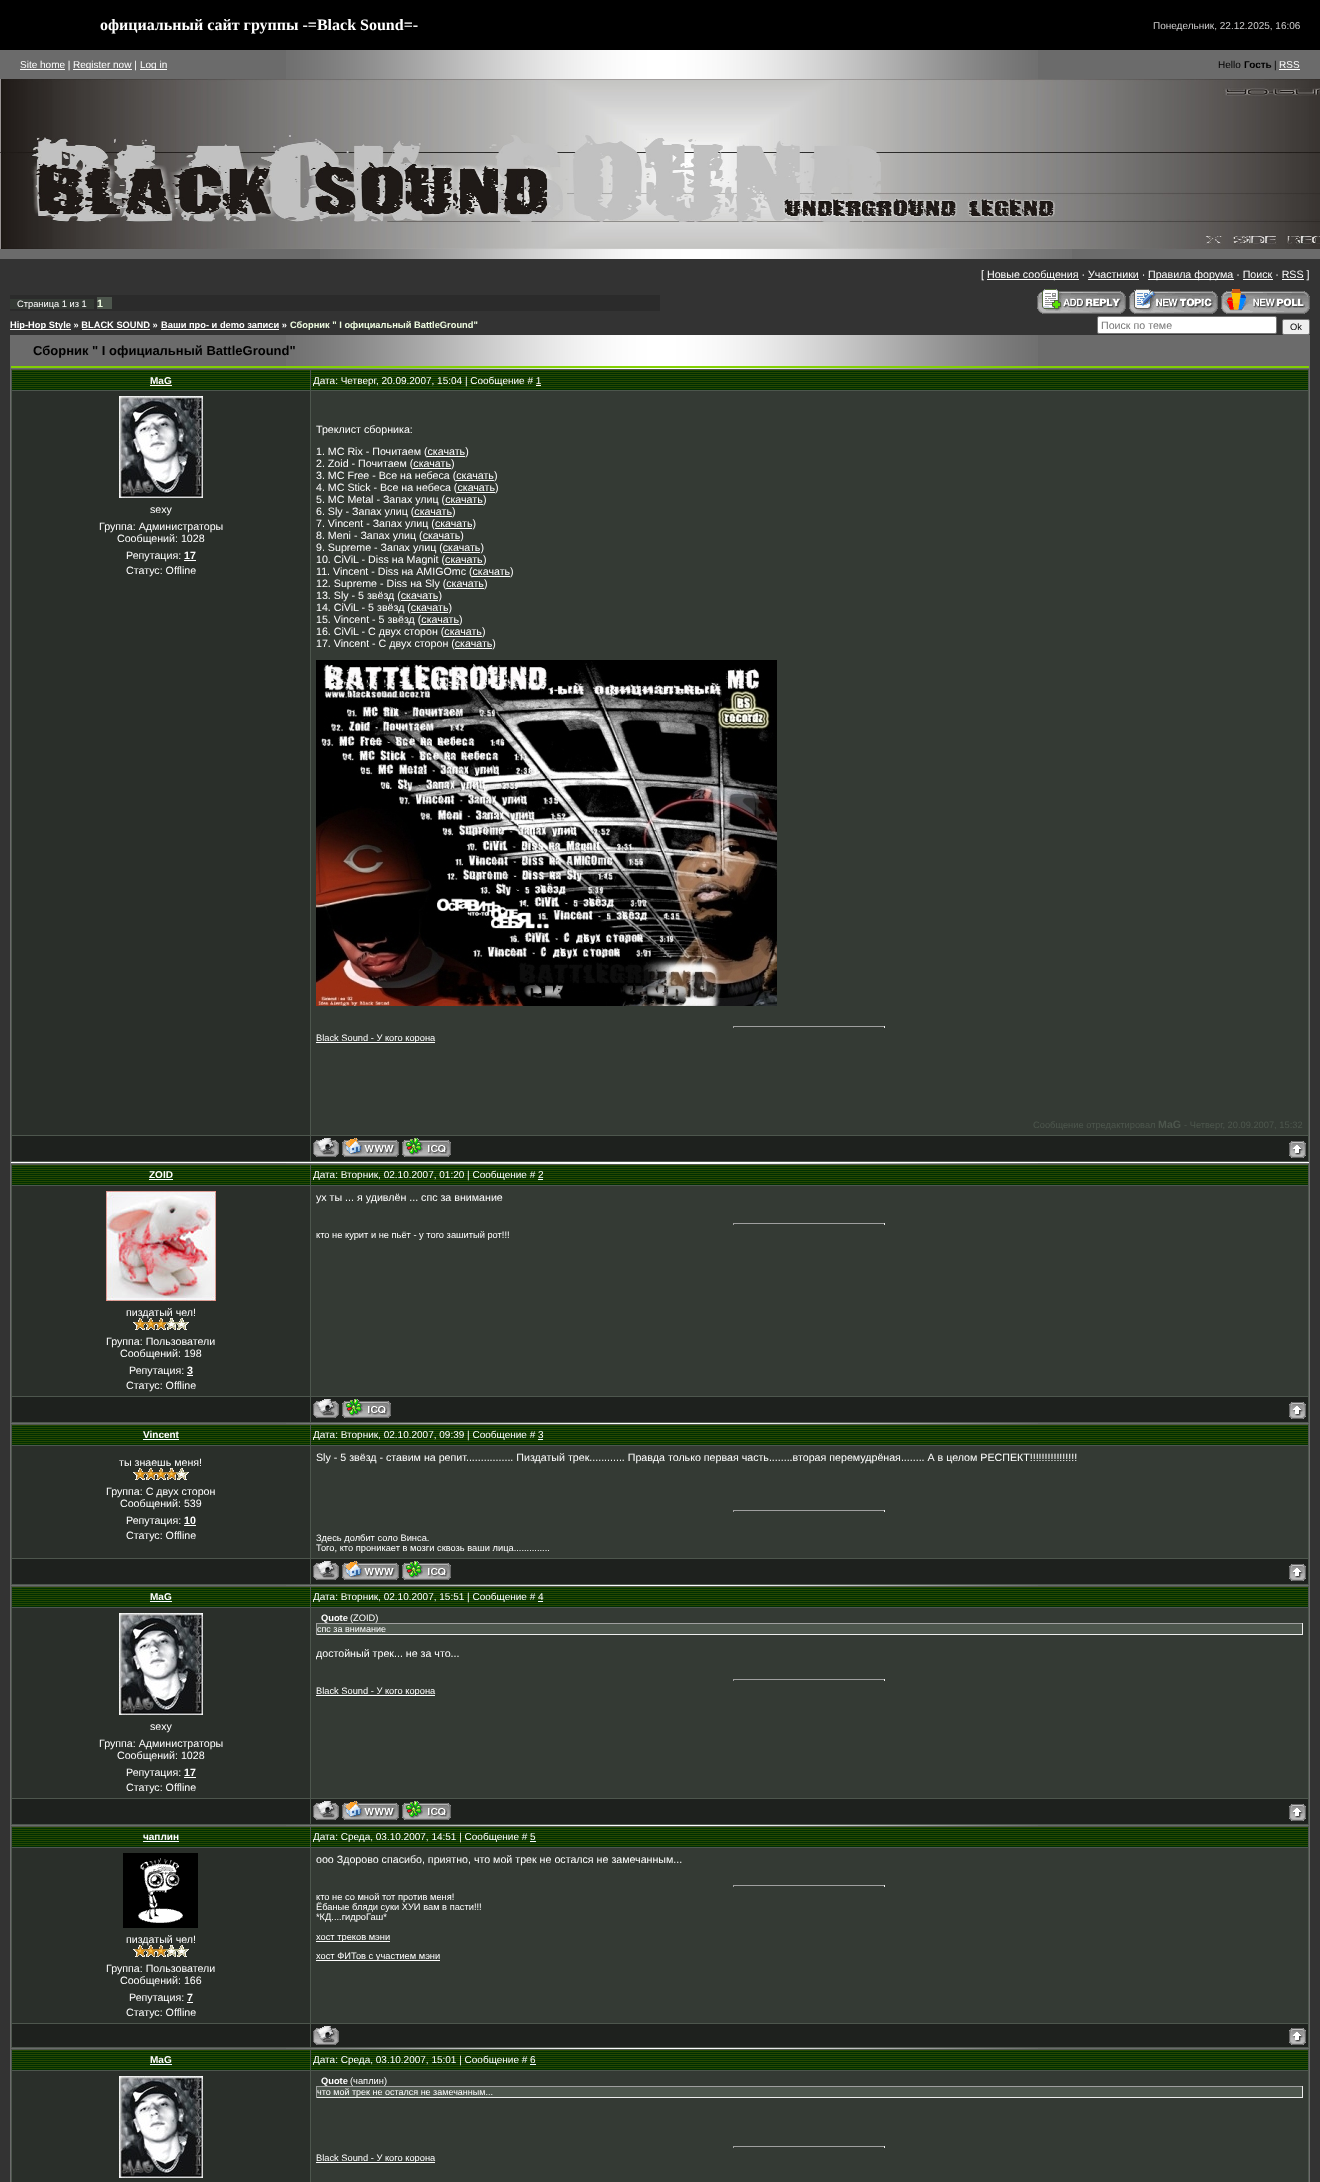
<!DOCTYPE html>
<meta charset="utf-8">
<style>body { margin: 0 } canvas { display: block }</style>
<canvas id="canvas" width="1320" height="2182"></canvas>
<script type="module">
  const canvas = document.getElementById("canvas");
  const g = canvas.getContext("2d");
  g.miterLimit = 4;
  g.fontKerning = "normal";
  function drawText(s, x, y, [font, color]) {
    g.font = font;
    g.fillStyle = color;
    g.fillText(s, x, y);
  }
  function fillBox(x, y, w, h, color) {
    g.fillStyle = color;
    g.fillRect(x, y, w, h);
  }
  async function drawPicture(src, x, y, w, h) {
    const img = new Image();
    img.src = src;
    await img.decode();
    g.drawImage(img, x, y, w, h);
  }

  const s1 = ["bold 16px Liberation Serif", "#FFFFFF"];
  const s2 = ["10px Liberation Sans", "#CECDCD"];
  const s3 = ["10px Liberation Sans", "#FFFFFF"];
  const s4 = ["10px Liberation Sans", "#000000"];
  const s5 = ["bold 10px Liberation Sans", "#000000"];
  const s6 = ["10.67px Liberation Sans", "#FFFFFF"];
  const s7 = ["9.3px Liberation Sans", "#FFFFFF"];
  const s8 = ["bold 10.67px Liberation Sans", "#EFFDE1"];
  const s9 = ["bold 9.3px Liberation Sans", "#FFFFFF"];
  const s10 = ["bold 9.3px Liberation Sans", "#EFFDE1"];
  const s11 = ["10.67px Liberation Sans", "#757575"];
  const s12 = ["9.3px Liberation Sans", "#000000"];
  const s13 = ["bold 13px Liberation Sans", "#000000"];
  const s14 = ["bold 10px Liberation Sans", "#FFFFFF"];
  const s15 = ["bold 10.67px Liberation Sans", "#FFFFFF"];
  const s16 = ["9.3px Liberation Sans", "#4D564D"];
  const s17 = ["bold 10.67px Liberation Sans", "#4D564D"];
  const s18 = ["9px Liberation Sans", "#FFFFFF"];

  fillBox(0, 0, 1320, 2182, "#333333");
  fillBox(0, 0, 1320, 50, "#000000");
  drawText("официальный сайт группы -=Black Sound=-", 100, 30, s1);
  drawText("Понедельник, 22.12.2025, 16:06", 1153, 29, s2);
  fillBox(0, 50, 1320, 29, "#6B6B6B");
  await drawPicture("pic1.png", 286, 50, 752, 29);
  fillBox(20, 69, 45, 1, "#FFFFFF");
  drawText("Site home |", 20, 68, s3);
  fillBox(73, 69, 59, 1, "#FFFFFF");
  drawText("Register now |", 73, 68, s3);
  fillBox(140, 69, 27, 1, "#FFFFFF");
  drawText("Log in", 140, 68, s3);
  drawText("Hello", 1218, 68, s4);
  drawText("Гость", 1244, 68, s5);
  drawText("|", 1274, 68, s4);
  drawText("RSS", 1279, 68, s3);
  fillBox(1279, 69, 21, 1, "#FFFFFF");
  await drawPicture("pic2.png", 0, 79, 1320, 170);
  fillBox(0, 249, 1320, 10, "#6B6B6B");
  await drawPicture("pic3.png", 320, 249, 752, 10);
  drawText("[", 981, 278, s6);
  fillBox(987, 279, 92, 1, "#FFFFFF");
  drawText("Новые сообщения · Участники ·", 987, 278, s6);
  fillBox(1148, 279, 86, 1, "#FFFFFF");
  drawText("Правила форума · Поиск · RSS ]", 1148, 278, s6);
  fillBox(1088, 279, 51, 1, "#FFFFFF");
  fillBox(1243, 279, 30, 1, "#FFFFFF");
  fillBox(1282, 279, 22, 1, "#FFFFFF");
  fillBox(10, 295, 650, 16, "#2B2B2B");
  fillBox(10, 299, 84, 10, "#343A34");
  drawText("Страница 1 из 1", 17, 307, s7);
  fillBox(97, 297, 15, 12, "#4D564D");
  drawText("1", 97, 307, s8);
  await drawPicture("pic4.png", 1037, 289, 89, 25);
  await drawPicture("pic5.png", 1129, 289, 89, 25);
  await drawPicture("pic6.png", 1221, 289, 89, 25);
  fillBox(10, 329, 61, 1, "#FFFFFF");
  drawText("Hip-Hop Style » BLACK SOUND »", 10, 328, s9);
  fillBox(161, 329, 118, 1, "#FFFFFF");
  drawText("Ваши про- и demo записи »", 161, 328, s9);
  drawText("Сборник \" I официальный BattleGround\"", 290, 328, s10);
  fillBox(82, 329, 68, 1, "#FFFFFF");
  g.beginPath();
  g.roundRect(1097.5, 316.5, 179, 17, 1.5);
  g.fill();
  g.strokeStyle = "#767676";
  g.stroke();
  drawText("Поиск по теме", 1101, 329, s11);
  g.fillStyle = "#EFEFEF";
  g.beginPath();
  g.roundRect(1282.5, 319.5, 27, 15, 1.5);
  g.fill();
  g.stroke();
  drawText("Ok", 1290, 330, s12);
  fillBox(10, 335, 1300, 1847, "#6B6B6B");
  await drawPicture("pic7.png", 286, 335, 752, 1714);
  fillBox(286, 336, 752, 29, "#6B6B6B");
  await drawPicture("pic1.png", 286, 336, 752, 29);
  drawText("Сборник \" I официальный BattleGround\"", 33, 355, s13);
  fillBox(11, 366, 1298, 2, "#82D002");
  fillBox(11, 1162, 1298, 1, "#FFFFFF");
  fillBox(11, 369, 1298, 793, "#4D564D");
  fillBox(12, 370, 298, 1, "#264601");
  await drawPicture("pic8.png", 12, 371, 298, 19);
  drawText("MaG", 150, 384, s14);
  fillBox(150, 385, 22, 1, "#FFFFFF");
  fillBox(311, 370, 997, 1, "#264601");
  await drawPicture("pic9.png", 311, 371, 997, 19);
  drawText("Дата: Четверг, 20.09.2007, 15:04 | Сообщение # 1", 313, 384, s3);
  fillBox(536, 385, 5, 1, "#FFFFFF");
  fillBox(12, 391, 298, 744, "#2A2F2A");
  await drawPicture("pic10.png", 119, 396, 84, 102);
  drawText("sexy", 150, 513, s6);
  drawText("Группа: Администраторы", 99, 530, s6);
  drawText("Сообщений: 1028", 117, 542, s6);
  drawText("Репутация:", 126, 559, s6);
  drawText("17", 184, 559, s15);
  fillBox(184, 560, 12, 1, "#FFFFFF");
  drawText("Статус: Offline", 126, 574, s6);
  fillBox(311, 391, 997, 744, "#343A34");
  drawText("Треклист сборника:", 316, 433, s6);
  drawText("1. MC Rix - Почитаем (скачать)", 316, 455, s6);
  fillBox(427, 456, 38, 1, "#FFFFFF");
  drawText("2. Zoid - Почитаем (скачать", 316, 467, s6);
  fillBox(413, 468, 38, 1, "#FFFFFF");
  drawText(")", 451, 467, s6);
  drawText("3. MC Free - Все на небеса (скачать", 316, 479, s6);
  fillBox(456, 480, 38, 1, "#FFFFFF");
  drawText(")", 494, 479, s6);
  drawText("4. MC Stick - Все на небеса (скачать", 316, 491, s6);
  fillBox(457, 492, 38, 1, "#FFFFFF");
  drawText(")", 495, 491, s6);
  drawText("5. MC Metal - Запах улиц (скачать", 316, 503, s6);
  fillBox(445, 504, 38, 1, "#FFFFFF");
  drawText(")", 483, 503, s6);
  drawText("6. Sly - Запах улиц (скачать", 316, 515, s6);
  fillBox(414, 516, 38, 1, "#FFFFFF");
  drawText(")", 452, 515, s6);
  drawText("7. Vincent - Запах улиц (скачать)", 316, 527, s6);
  fillBox(435, 528, 37, 1, "#FFFFFF");
  drawText("8. Meni - Запах улиц (скачать)", 316, 539, s6);
  fillBox(422, 540, 38, 1, "#FFFFFF");
  drawText("9. Supreme - Запах улиц (скачать)", 316, 551, s6);
  fillBox(443, 552, 37, 1, "#FFFFFF");
  drawText("10. CiViL - Diss на Magnit (скачать", 316, 563, s6);
  fillBox(445, 564, 38, 1, "#FFFFFF");
  drawText(")", 483, 563, s6);
  drawText("11. Vincent - Diss на AMIGOmc (скачать)", 316, 575, s6);
  fillBox(472, 576, 38, 1, "#FFFFFF");
  drawText("12. Supreme - Diss на Sly (скачать", 316, 587, s6);
  fillBox(446, 588, 38, 1, "#FFFFFF");
  drawText(")", 484, 587, s6);
  drawText("13. Sly - 5 звёзд (скачать)", 316, 599, s6);
  fillBox(401, 600, 37, 1, "#FFFFFF");
  drawText("14. CiViL - 5 звёзд (скачать)", 316, 611, s6);
  fillBox(411, 612, 37, 1, "#FFFFFF");
  drawText("15. Vincent - 5 звёзд (скачать", 316, 623, s6);
  fillBox(421, 624, 38, 1, "#FFFFFF");
  drawText(")", 459, 623, s6);
  drawText("16. CiViL - С двух сторон (скачать", 316, 635, s6);
  fillBox(444, 636, 38, 1, "#FFFFFF");
  drawText(")", 482, 635, s6);
  drawText("17. Vincent - С двух сторон (скачать)", 316, 647, s6);
  fillBox(455, 648, 37, 1, "#FFFFFF");
  await drawPicture("pic11.png", 316, 660, 461, 346);
  fillBox(733, 1026, 152, 1, "#9F9F9F");
  fillBox(884, 1026, 1, 2, "#EEEEEE");
  fillBox(733, 1026, 1, 2, "#9F9F9F");
  fillBox(316, 1042, 119, 1, "#FFFFFF");
  drawText("Black Sound - У кого корона", 316, 1041, s7);
  drawText("Сообщение отредактировал", 1033, 1128, s16);
  drawText("MaG", 1158, 1128, s17);
  drawText("- Четверг, 20.09.2007, 15:32", 1184, 1128, s16);
  fillBox(12, 1136, 298, 25, "#1E211E");
  fillBox(311, 1136, 997, 25, "#1E211E");
  await drawPicture("pic12.png", 313, 1138, 26, 19);
  await drawPicture("pic13.png", 342, 1138, 57, 19);
  await drawPicture("pic14.png", 402, 1138, 49, 19);
  await drawPicture("pic15.png", 1289, 1141, 17, 17);
  fillBox(11, 1164, 1298, 259, "#4D564D");
  fillBox(12, 1165, 298, 1, "#264601");
  await drawPicture("pic8.png", 12, 1166, 298, 19);
  drawText("ZOID", 149, 1178, s14);
  fillBox(149, 1179, 24, 1, "#FFFFFF");
  fillBox(311, 1165, 997, 1, "#264601");
  await drawPicture("pic9.png", 311, 1166, 997, 19);
  drawText("Дата: Вторник, 02.10.2007, 01:20 | Сообщение # 2", 313, 1178, s3);
  fillBox(538, 1179, 5, 1, "#FFFFFF");
  fillBox(311, 1186, 997, 210, "#343A34");
  drawText("ух ты ... я удивлён ... спс за внимание", 316, 1201, s6);
  fillBox(733, 1223, 152, 1, "#9F9F9F");
  fillBox(884, 1223, 1, 2, "#EEEEEE");
  fillBox(733, 1223, 1, 2, "#9F9F9F");
  drawText("кто не курит и не пьёт - у того зашитый рот!!!", 316, 1238, s7);
  fillBox(12, 1186, 298, 210, "#2A2F2A");
  await drawPicture("pic16.png", 106, 1191, 110, 110);
  drawText("пиздатый чел!", 126, 1316, s6);
  await drawPicture("pic17.png", 133, 1318, 56, 12);
  drawText("Группа: Пользователи", 106, 1345, s6);
  drawText("Сообщений: 198", 120, 1357, s6);
  drawText("Репутация:", 129, 1374, s6);
  drawText("3", 187, 1374, s15);
  fillBox(187, 1375, 6, 1, "#FFFFFF");
  drawText("Статус: Offline", 126, 1389, s6);
  fillBox(12, 1397, 298, 25, "#1E211E");
  fillBox(311, 1397, 997, 25, "#1E211E");
  await drawPicture("pic12.png", 313, 1399, 26, 19);
  await drawPicture("pic14.png", 342, 1399, 49, 19);
  await drawPicture("pic15.png", 1289, 1402, 17, 17);
  fillBox(11, 1424, 1298, 161, "#4D564D");
  fillBox(12, 1425, 298, 1, "#264601");
  await drawPicture("pic8.png", 12, 1426, 298, 19);
  drawText("Vincent", 143, 1438, s14);
  fillBox(143, 1439, 36, 1, "#FFFFFF");
  fillBox(311, 1425, 997, 1, "#264601");
  await drawPicture("pic9.png", 311, 1426, 997, 19);
  drawText("Дата: Вторник, 02.10.2007, 09:39 | Сообщение # 3", 313, 1438, s3);
  fillBox(538, 1439, 5, 1, "#FFFFFF");
  fillBox(12, 1446, 298, 112, "#2A2F2A");
  drawText("ты знаешь меня!", 119, 1466, s6);
  await drawPicture("pic18.png", 133, 1468, 56, 12);
  drawText("Группа: С двух сторон", 106, 1495, s6);
  drawText("Сообщений: 539", 120, 1507, s6);
  drawText("Репутация:", 126, 1524, s6);
  drawText("10", 184, 1524, s15);
  fillBox(184, 1525, 12, 1, "#FFFFFF");
  drawText("Статус: Offline", 126, 1539, s6);
  fillBox(311, 1446, 997, 112, "#343A34");
  drawText("Sly - 5 звёзд - ставим на репит................ Пиздатый трек............ Правда только первая часть........вторая перемудрёная........ А в целом РЕСПЕКТ!!!!!!!!!!!!!!!!", 316, 1461, s6);
  fillBox(733, 1510, 152, 1, "#9F9F9F");
  fillBox(884, 1510, 1, 2, "#EEEEEE");
  fillBox(733, 1510, 1, 2, "#9F9F9F");
  drawText("Здесь долбит соло Винса.", 316, 1541, s7);
  drawText("Того, кто проникает в мозги сквозь ваши лица..............", 316, 1551, s7);
  fillBox(12, 1559, 298, 25, "#1E211E");
  fillBox(311, 1559, 997, 25, "#1E211E");
  await drawPicture("pic12.png", 313, 1561, 26, 19);
  await drawPicture("pic13.png", 342, 1561, 57, 19);
  await drawPicture("pic14.png", 402, 1561, 49, 19);
  await drawPicture("pic15.png", 1289, 1564, 17, 17);
  fillBox(11, 1586, 1298, 239, "#4D564D");
  fillBox(12, 1587, 298, 1, "#264601");
  await drawPicture("pic8.png", 12, 1588, 298, 19);
  drawText("MaG", 150, 1600, s14);
  fillBox(150, 1601, 22, 1, "#FFFFFF");
  fillBox(311, 1587, 997, 1, "#264601");
  await drawPicture("pic9.png", 311, 1588, 997, 19);
  drawText("Дата: Вторник, 02.10.2007, 15:51 | Сообщение # 4", 313, 1600, s3);
  fillBox(538, 1601, 5, 1, "#FFFFFF");
  fillBox(311, 1608, 997, 190, "#343A34");
  drawText("Quote", 321, 1621, s9);
  drawText("(ZOID)", 350, 1621, s7);
  fillBox(317, 1624, 985, 10, "#4D564D");
  fillBox(316, 1623, 987, 1, "#9F9F9F");
  fillBox(1302, 1623, 1, 12, "#EEEEEE");
  fillBox(316, 1634, 987, 1, "#EEEEEE");
  fillBox(316, 1623, 1, 12, "#9F9F9F");
  drawText("спс за внимание", 317, 1632, s18);
  drawText("достойный трек... не за что...", 316, 1657, s6);
  fillBox(733, 1679, 152, 1, "#9F9F9F");
  fillBox(884, 1679, 1, 2, "#EEEEEE");
  fillBox(733, 1679, 1, 2, "#9F9F9F");
  fillBox(316, 1695, 119, 1, "#FFFFFF");
  drawText("Black Sound - У кого корона", 316, 1694, s7);
  fillBox(12, 1608, 298, 190, "#2A2F2A");
  await drawPicture("pic10.png", 119, 1613, 84, 102);
  drawText("sexy", 150, 1730, s6);
  drawText("Группа: Администраторы", 99, 1747, s6);
  drawText("Сообщений: 1028", 117, 1759, s6);
  drawText("Репутация:", 126, 1776, s6);
  drawText("17", 184, 1776, s15);
  fillBox(184, 1777, 12, 1, "#FFFFFF");
  drawText("Статус: Offline", 126, 1791, s6);
  fillBox(12, 1799, 298, 25, "#1E211E");
  fillBox(311, 1799, 997, 25, "#1E211E");
  await drawPicture("pic12.png", 313, 1801, 26, 19);
  await drawPicture("pic13.png", 342, 1801, 57, 19);
  await drawPicture("pic14.png", 402, 1801, 49, 19);
  await drawPicture("pic15.png", 1289, 1804, 17, 17);
  fillBox(11, 1826, 1298, 222, "#4D564D");
  fillBox(12, 1827, 298, 1, "#264601");
  await drawPicture("pic8.png", 12, 1828, 298, 19);
  drawText("чаплин", 143, 1840, s14);
  fillBox(143, 1841, 36, 1, "#FFFFFF");
  fillBox(311, 1827, 997, 1, "#264601");
  await drawPicture("pic9.png", 311, 1828, 997, 19);
  drawText("Дата: Среда, 03.10.2007, 14:51 | Сообщение # 5", 313, 1840, s3);
  fillBox(530, 1841, 6, 1, "#FFFFFF");
  fillBox(311, 1848, 997, 175, "#343A34");
  drawText("ооо Здорово спасибо, приятно, что мой трек не остался не замечанным...", 316, 1863, s6);
  fillBox(733, 1885, 152, 1, "#9F9F9F");
  fillBox(884, 1885, 1, 2, "#EEEEEE");
  fillBox(733, 1885, 1, 2, "#9F9F9F");
  drawText("кто не со мной тот против меня!", 316, 1900, s7);
  drawText("Ёбаные бляди суки ХУИ вам в пасти!!!", 316, 1910, s7);
  drawText("*КД....гидроГаш*", 316, 1920, s7);
  fillBox(316, 1941, 74, 1, "#FFFFFF");
  drawText("хост треков мэни", 316, 1940, s7);
  fillBox(316, 1960, 124, 1, "#FFFFFF");
  drawText("хост ФИТов с участием мэни", 316, 1959, s7);
  fillBox(12, 1848, 298, 175, "#2A2F2A");
  await drawPicture("pic19.png", 123, 1853, 75, 75);
  drawText("пиздатый чел!", 126, 1943, s6);
  await drawPicture("pic17.png", 133, 1945, 56, 12);
  drawText("Группа: Пользователи", 106, 1972, s6);
  drawText("Сообщений: 166", 120, 1984, s6);
  drawText("Репутация:", 129, 2001, s6);
  drawText("7", 187, 2001, s15);
  fillBox(187, 2002, 6, 1, "#FFFFFF");
  drawText("Статус: Offline", 126, 2016, s6);
  fillBox(12, 2024, 298, 23, "#1E211E");
  fillBox(311, 2024, 997, 23, "#1E211E");
  await drawPicture("pic12.png", 313, 2026, 26, 19);
  await drawPicture("pic15.png", 1289, 2028, 17, 17);
  fillBox(11, 2049, 1298, 133, "#4D564D");
  fillBox(12, 2050, 298, 1, "#264601");
  await drawPicture("pic8.png", 12, 2051, 298, 19);
  drawText("MaG", 150, 2063, s14);
  fillBox(150, 2064, 22, 1, "#FFFFFF");
  fillBox(311, 2050, 997, 1, "#264601");
  await drawPicture("pic9.png", 311, 2051, 997, 19);
  drawText("Дата: Среда, 03.10.2007, 15:01 | Сообщение # 6", 313, 2063, s3);
  fillBox(530, 2064, 6, 1, "#FFFFFF");
  fillBox(12, 2071, 298, 111, "#2A2F2A");
  await drawPicture("pic10.png", 119, 2076, 84, 102);
  fillBox(311, 2071, 997, 111, "#343A34");
  drawText("Quote", 321, 2084, s9);
  drawText("(чаплин)", 350, 2084, s7);
  fillBox(317, 2087, 985, 10, "#4D564D");
  fillBox(316, 2086, 987, 1, "#9F9F9F");
  fillBox(1302, 2086, 1, 12, "#EEEEEE");
  fillBox(316, 2097, 987, 1, "#EEEEEE");
  fillBox(316, 2086, 1, 12, "#9F9F9F");
  drawText("что мой трек не остался не замечанным...", 317, 2095, s18);
  fillBox(733, 2146, 152, 1, "#9F9F9F");
  fillBox(884, 2146, 1, 2, "#EEEEEE");
  fillBox(733, 2146, 1, 2, "#9F9F9F");
  fillBox(316, 2162, 119, 1, "#FFFFFF");
  drawText("Black Sound - У кого корона", 316, 2161, s7);
</script>
